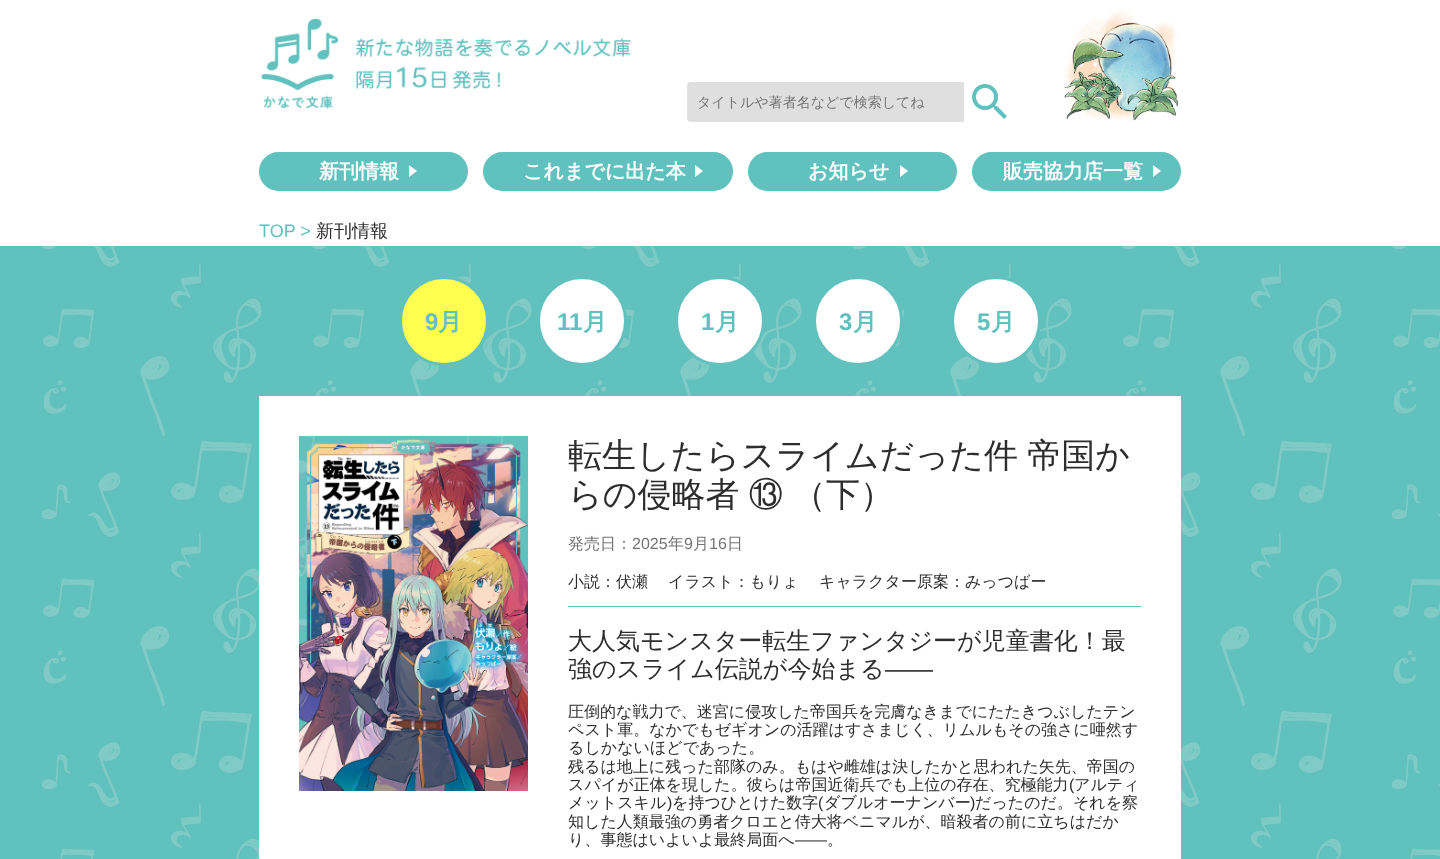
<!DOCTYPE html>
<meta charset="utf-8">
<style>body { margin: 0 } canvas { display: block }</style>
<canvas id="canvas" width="1440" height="859"></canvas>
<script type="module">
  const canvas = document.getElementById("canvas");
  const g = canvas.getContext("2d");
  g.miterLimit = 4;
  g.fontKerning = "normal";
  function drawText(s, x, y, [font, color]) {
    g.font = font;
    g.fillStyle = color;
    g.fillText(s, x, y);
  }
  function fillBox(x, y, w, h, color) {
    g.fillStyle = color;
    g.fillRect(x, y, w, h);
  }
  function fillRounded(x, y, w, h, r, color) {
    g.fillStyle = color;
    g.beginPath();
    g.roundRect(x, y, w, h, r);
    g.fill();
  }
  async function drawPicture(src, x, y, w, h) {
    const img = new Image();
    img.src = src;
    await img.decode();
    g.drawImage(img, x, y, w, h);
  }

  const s1 = ["500 14px WenQuanYi Zen Hei", "#757575"];
  const s2 = ["bold 20px WenQuanYi Zen Hei", "#FFFFFF"];
  const s3 = ["18px Liberation Sans", "#61C1BE"];
  const s4 = ["500 18px WenQuanYi Zen Hei", "#2D2D2D"];
  const s5 = ["bold 24px Liberation Sans", "#61C1BE"];
  const s6 = ["bold 24px WenQuanYi Zen Hei", "#61C1BE"];
  const s7 = ["500 34px WenQuanYi Zen Hei", "#2D2D2D"];
  const s8 = ["500 16px WenQuanYi Zen Hei", "#757575"];
  const s9 = ["16px Liberation Sans", "#757575"];
  const s10 = ["500 16px WenQuanYi Zen Hei", "#2D2D2D"];
  const s11 = ["500 24px WenQuanYi Zen Hei", "#2D2D2D"];
  const s12 = ["24px Liberation Sans", "#2D2D2D"];
  const s13 = ["16px Liberation Sans", "#2D2D2D"];

  fillBox(0, 0, 1440, 859, "#FFFFFF");
  await drawPicture("pic1.png", 0, 246, 1440, 613);
  await drawPicture("pic2.png", 261, 18, 370, 92);
  g.fillStyle = "#DFDFDF";
  g.beginPath();
  g.roundRect(687, 82, 277, 40, [4, 0, 0, 4]);
  g.fill();
  drawText("タイトルや著者名などで検索してね", 697, 107, s1);
  await drawPicture("pic3.png", 972, 84, 35, 35);
  await drawPicture("pic4.png", 1064, 10, 115, 111);
  fillRounded(259, 152, 209, 39, 19.5, "#61C1BE");
  drawText("新刊情報", 319, 178, s2);
  g.beginPath();
  g.moveTo(409, 177);
  g.lineTo(409, 165);
  g.lineTo(417, 171);
  g.closePath();
  g.fill();
  fillRounded(483, 152, 250, 39, 19.5, "#61C1BE");
  drawText("これまでに出た本", 523, 178, s2);
  g.beginPath();
  g.moveTo(695, 177);
  g.lineTo(695, 165);
  g.lineTo(703, 171);
  g.closePath();
  g.fill();
  fillRounded(748, 152, 209, 39, 19.5, "#61C1BE");
  drawText("お知らせ", 808, 178, s2);
  g.beginPath();
  g.moveTo(900, 177);
  g.lineTo(900, 165);
  g.lineTo(908, 171);
  g.closePath();
  g.fill();
  fillRounded(972, 152, 209, 39, 19.5, "#61C1BE");
  drawText("販売協力店一覧", 1003, 178, s2);
  g.beginPath();
  g.moveTo(1153, 177);
  g.lineTo(1153, 165);
  g.lineTo(1161, 171);
  g.closePath();
  g.fill();
  drawText("TOP >", 259, 237, s3);
  drawText("新刊情報", 316, 237, s4);
  g.fillStyle = "#FFFF50";
  g.beginPath();
  g.arc(444, 321, 43.5, 0, Math.PI * 2);
  g.fill();
  g.strokeStyle = "#61C1BE";
  g.lineWidth = 3;
  g.stroke();
  drawText("9", 425, 330, s5);
  drawText("月", 438, 330, s6);
  g.fillStyle = "#FFFFFF";
  g.beginPath();
  g.arc(582, 321, 43.5, 0, Math.PI * 2);
  g.fill();
  g.stroke();
  drawText("11", 557, 330, s5);
  drawText("月", 583, 330, s6);
  g.fillStyle = "#FFFFFF";
  g.beginPath();
  g.arc(720, 321, 43.5, 0, Math.PI * 2);
  g.fill();
  g.stroke();
  drawText("1", 701, 330, s5);
  drawText("月", 715, 330, s6);
  g.fillStyle = "#FFFFFF";
  g.beginPath();
  g.arc(858, 321, 43.5, 0, Math.PI * 2);
  g.fill();
  g.stroke();
  drawText("3", 839, 330, s5);
  drawText("月", 853, 330, s6);
  g.fillStyle = "#FFFFFF";
  g.beginPath();
  g.arc(996, 321, 43.5, 0, Math.PI * 2);
  g.fill();
  g.stroke();
  drawText("5", 977, 330, s5);
  drawText("月", 991, 330, s6);
  fillBox(259, 396, 922, 463, "#FFFFFF");
  await drawPicture("pic5.png", 299, 436, 229, 355);
  g.wordSpacing = "-1px";
  drawText("転生したらスライムだった件 帝国か", 568, 467, s7);
  drawText("らの侵略者 ⑬ （下）", 568, 506, s7);
  g.wordSpacing = "0px";
  drawText("発売日：", 568, 549, s8);
  drawText("2025", 632, 549, s9);
  drawText("年", 668, 549, s8);
  drawText("9", 684, 549, s9);
  drawText("月", 693, 549, s8);
  drawText("16", 709, 549, s9);
  drawText("日", 727, 549, s8);
  fillBox(568, 606, 573, 1, "#61C1BE");
  drawText("小説：伏瀬", 568, 587, s10);
  drawText("イラスト：もりょ", 668, 587, s10);
  drawText("キャラクター原案：みっつばー", 819, 587, s10);
  drawText("大人気モンスター転生ファンタジーが児童書化！最", 568, 649, s11);
  drawText("強のスライム伝説が今始まる", 568, 677, s11);
  drawText("――", 885, 677, s12);
  drawText("圧倒的な戦力で、迷宮に侵攻した帝国兵を完膚なきまでにたたきつぶしたテン", 568, 717, s10);
  drawText("ペスト軍。なかでもゼギオンの活躍はすさまじく、リムルもその強さに唖然す", 568, 735, s10);
  drawText("るしかないほどであった。", 568, 753, s10);
  drawText("残るは地上に残った部隊のみ。もはや雌雄は決したかと思われた矢先、帝国の", 568, 772, s10);
  drawText("スパイが正体を現した。彼らは帝国近衛兵でも上位の存在、究極能力", 568, 790, s10);
  drawText("(", 1069, 790, s13);
  drawText("アルティ", 1074, 790, s10);
  drawText("メットスキル", 568, 808, s10);
  drawText(")", 667, 808, s13);
  drawText("を持つひとけた数字", 672, 808, s10);
  drawText("(", 818, 808, s13);
  drawText("ダブルオーナンバー", 824, 808, s10);
  drawText(")", 970, 808, s13);
  drawText("だったのだ。それを察", 975, 808, s10);
  drawText("知した人類最強の勇者クロエと侍大将ベニマルが、暗殺者の前に立ちはだか", 568, 827, s10);
  drawText("り、事態はいよいよ最終局面へ", 568, 845, s10);
  drawText("――", 795, 845, s13);
  drawText("。", 827, 845, s10);
</script>
